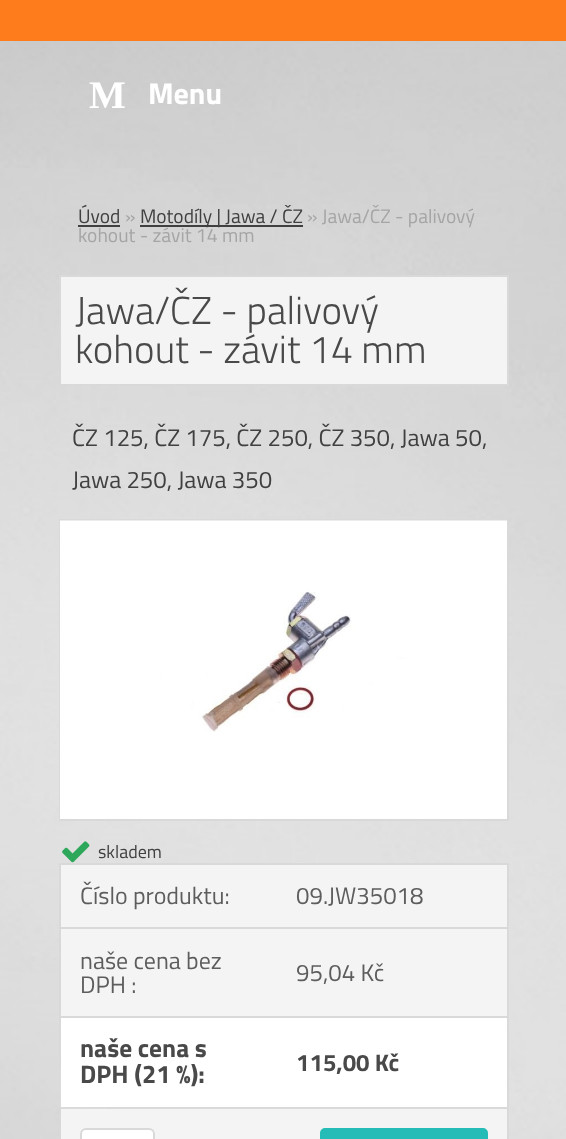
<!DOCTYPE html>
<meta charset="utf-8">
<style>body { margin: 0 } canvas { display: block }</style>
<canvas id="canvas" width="566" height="1139"></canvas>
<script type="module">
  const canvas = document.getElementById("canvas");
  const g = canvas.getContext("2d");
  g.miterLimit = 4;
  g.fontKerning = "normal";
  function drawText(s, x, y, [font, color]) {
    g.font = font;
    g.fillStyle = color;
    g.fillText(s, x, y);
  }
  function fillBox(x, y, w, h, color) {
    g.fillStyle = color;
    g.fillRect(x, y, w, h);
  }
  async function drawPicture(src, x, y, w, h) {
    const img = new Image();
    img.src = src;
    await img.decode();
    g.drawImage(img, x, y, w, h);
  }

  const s1 = ["bold 39px Liberation Serif", "#FFFFFF"];
  const s2 = ["bold 30px Titillium Web", "#FFFFFF"];
  const s3 = ["19.5px Titillium Web", "#404040"];
  const s4 = ["19.5px Titillium Web", "#A5A5A5"];
  const s5 = ["300 39px Titillium Web", "#494949"];
  const s6 = ["24px Titillium Web", "#404040"];
  const s7 = ["18px Titillium Web", "#404040"];
  const s8 = ["24px Titillium Web", "#5D5D5D"];
  const s9 = ["bold 25.5px Titillium Web", "#494949"];
  const s10 = ["bold 24px Titillium Web", "#494949"];

  fillBox(0, 0, 566, 1139, "#FFFFFF");
  fillBox(0, 0, 566, 41, "#FE7C1C");
  await drawPicture("pic1.png", 0, 41, 566, 1098);
  drawText("M", 89, 108, s1);
  drawText("Menu", 148, 104, s2);
  drawText("Úvod", 78, 223, s3);
  fillBox(78, 225, 42, 2, "#404040");
  drawText("»", 125, 223, s4);
  fillBox(140, 225, 163, 2, "rgba(0, 0, 0, 0.7)");
  drawText("Motodíly | Jawa / ČZ", 140, 223, s3);
  drawText("» Jawa/ČZ - palivový", 307, 223, s4);
  drawText("kohout - závit 14 mm", 78, 242, s4);
  g.fillStyle = "#F4F4F4";
  g.beginPath();
  g.rect(60, 276, 448, 109);
  g.fill();
  g.strokeStyle = "#D9D9D9";
  g.lineWidth = 2;
  g.stroke();
  drawText("Jawa/ČZ - palivový", 75, 324, s5);
  drawText("kohout - závit 14 mm", 75, 363, s5);
  drawText("ČZ 125, ČZ 175, ČZ 250, ČZ 350, Jawa 50,", 72, 446, s6);
  drawText("Jawa 250, Jawa 350", 72, 488, s6);
  g.strokeRect(60, 520, 448, 300);
  await drawPicture("pic2.png", 60, 520, 447, 212);
  fillBox(60, 732, 447, 87, "#FFFFFF");
  await drawPicture("pic3.png", 62, 841, 28, 22);
  drawText("skladem", 98, 858, s7);
  fillBox(61, 1018, 446, 89, "#FFFFFF");
  fillBox(59, 863, 450, 2, "#D9D9D9");
  fillBox(507, 863, 2, 276, "#D9D9D9");
  fillBox(59, 863, 2, 204, "#D9D9D9");
  fillBox(61, 865, 446, 62, "#F4F4F4");
  drawText("Číslo produktu:", 80, 904, s8);
  drawText("09.JW35018", 296, 904, s8);
  fillBox(61, 929, 446, 87, "#F4F4F4");
  fillBox(59, 927, 450, 2, "#D9D9D9");
  drawText("naše cena bez", 80, 969, s8);
  drawText("DPH :", 80, 993, s8);
  drawText("95,04 Kč", 296, 981, s8);
  fillBox(59, 1016, 450, 2, "#D9D9D9");
  drawText("naše cena s", 80, 1057, s9);
  drawText("DPH (21 %):", 80, 1083, s9);
  drawText("115,00 Kč", 296, 1071, s10);
  fillBox(61, 1109, 446, 30, "#F4F4F4");
  fillBox(106, 1107, 403, 2, "#D9D9D9");
  g.fillStyle = "#FFFFFF";
  g.beginPath();
  g.roundRect(81, 1129, 73, 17, 5);
  g.fill();
  g.stroke();
  g.fillStyle = "#25BCB7";
  g.beginPath();
  g.roundRect(321, 1129, 166, 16, 4);
  g.fill();
  g.strokeStyle = "#25BCB7";
  g.stroke();
</script>
